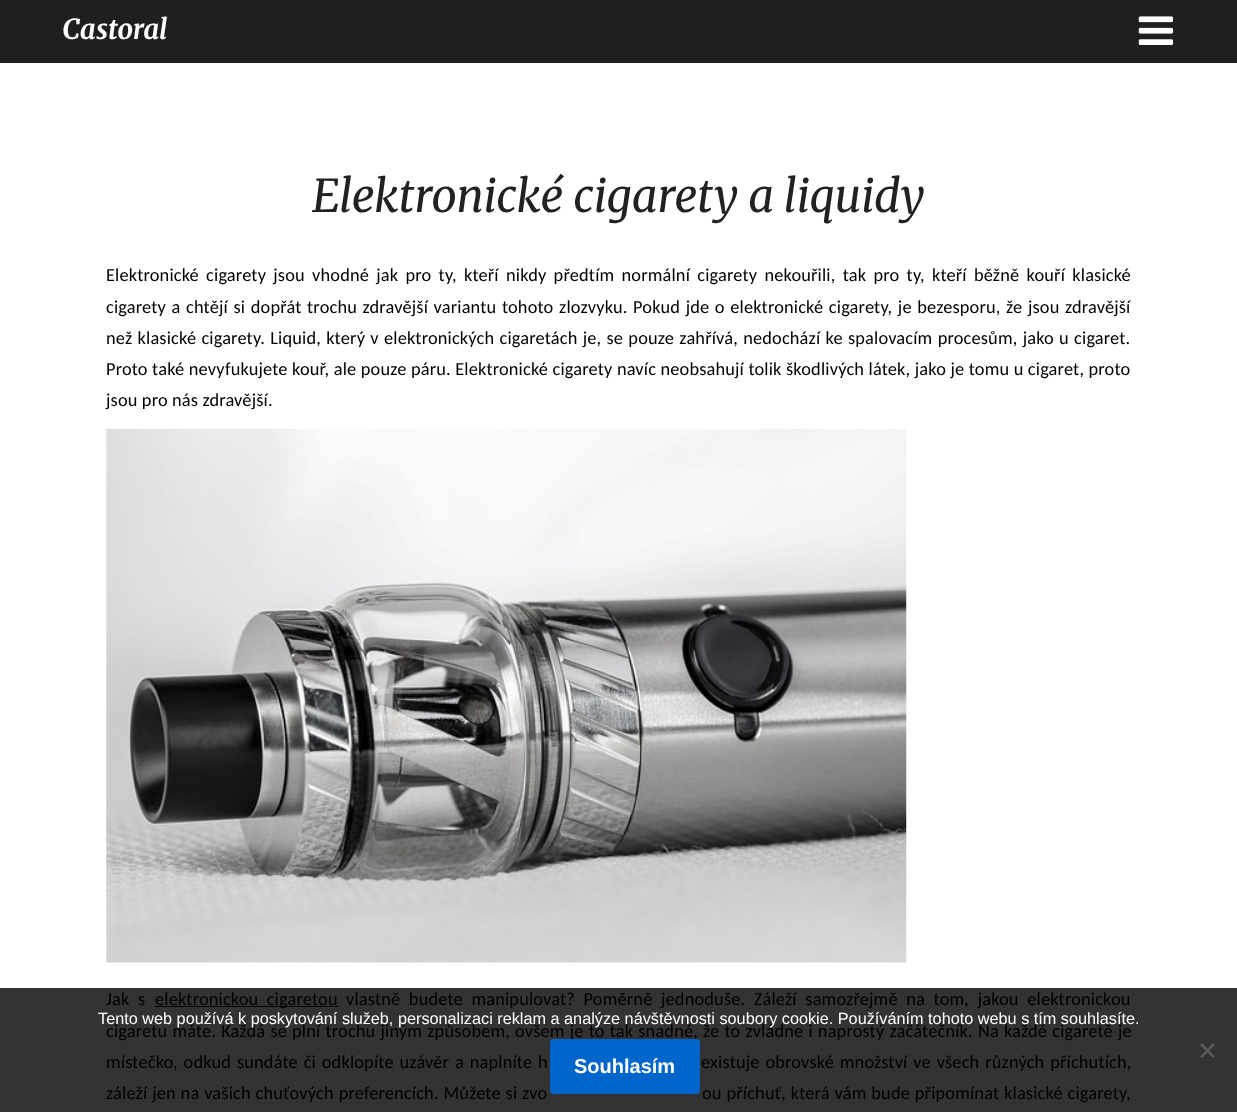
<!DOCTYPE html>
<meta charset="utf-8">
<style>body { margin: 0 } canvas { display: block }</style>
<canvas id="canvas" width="1237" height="1112"></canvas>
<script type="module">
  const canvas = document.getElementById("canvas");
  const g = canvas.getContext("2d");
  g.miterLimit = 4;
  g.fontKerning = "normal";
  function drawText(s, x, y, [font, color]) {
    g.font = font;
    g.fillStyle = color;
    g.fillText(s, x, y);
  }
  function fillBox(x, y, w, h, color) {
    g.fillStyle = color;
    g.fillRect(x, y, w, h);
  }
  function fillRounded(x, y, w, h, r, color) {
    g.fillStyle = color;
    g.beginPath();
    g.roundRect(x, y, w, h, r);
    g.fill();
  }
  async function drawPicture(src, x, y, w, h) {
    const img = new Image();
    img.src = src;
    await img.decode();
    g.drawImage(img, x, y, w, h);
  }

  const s1 = ["italic bold 27.5px Merriweather", "#FFFFFF"];
  const s2 = ["italic 45px Merriweather", "#212121"];
  const s3 = ["18.33px Carlito", "#000000"];
  const s4 = ["16.25px Liberation Sans", "#FFFFFF"];
  const s5 = ["bold 20px Liberation Sans", "#FFFFFF"];

  fillBox(0, 0, 1237, 1112, "#FFFFFF");
  fillBox(0, 988, 1237, 124, "#333333");
  fillBox(0, 0, 1237, 63, "#1F1F1F");
  drawText("Castoral", 62, 39, s1);
  await drawPicture("pic1.png", 1138, 16, 36, 29);
  drawText("Elektronické cigarety a liquidy", 312, 212, s2);
  g.letterSpacing = "0.17px";
  g.wordSpacing = "2.9px";
  drawText("Elektronické cigarety jsou vhodné jak pro ty, kteří nikdy předtím normální cigarety nekouřili, tak pro ty, kteří běžně kouří klasické", 106, 281, s3);
  g.wordSpacing = "1.25px";
  drawText("cigarety a chtějí si dopřát trochu zdravější variantu tohoto zlozvyku. Pokud jde o elektronické cigarety, je bezesporu, že jsou zdravější", 106, 313, s3);
  g.wordSpacing = "0.9px";
  drawText("než klasické cigarety. Liquid, který v elektronických cigaretách je, se pouze zahřívá, nedochází ke spalovacím procesům, jako u cigaret.", 106, 344, s3);
  g.wordSpacing = "0.1px";
  drawText("Proto také nevyfukujete kouř, ale pouze páru. Elektronické cigarety navíc neobsahují tolik škodlivých látek, jako je tomu u cigaret, proto", 106, 375, s3);
  g.wordSpacing = "0px";
  drawText("jsou pro nás zdravější.", 106, 406, s3);
  await drawPicture("pic2.png", 106, 428, 801, 535);
  g.wordSpacing = "4.25px";
  drawText("Jak s", 106, 1005, s3);
  fillBox(155, 1006, 183, 1, "#000000");
  g.wordSpacing = "4px";
  drawText("elektronickou cigaretou", 155, 1005, s3);
  g.wordSpacing = "4.25px";
  drawText("vlastně budete manipulovat? Poměrně jednoduše. Záleží samozřejmě na tom, jakou elektronickou", 346, 1005, s3);
  g.wordSpacing = "0.75px";
  drawText("cigaretu máte. Každá se plní trochu jiným způsobem, ovšem je to tak snadné, že to zvládne i naprostý začátečník. Na každé cigaretě je", 106, 1037, s3);
  g.wordSpacing = "1.5px";
  drawText("místečko, odkud sundáte či odklopíte uzávěr a naplníte h", 106, 1068, s3);
  drawText("existuje obrovské množství ve všech různých příchutích,", 701, 1068, s3);
  g.wordSpacing = "0.5px";
  drawText("záleží jen na vašich chuťových preferencích. Můžete si zvo", 106, 1099, s3);
  drawText("ou příchuť, která vám bude připomínat klasické cigarety,", 702, 1099, s3);
  g.letterSpacing = "0px";
  g.wordSpacing = "0px";
  drawText("Tento web používá k poskytování služeb, personalizaci reklam a analýze návštěvnosti soubory cookie. Používáním tohoto webu s tím souhlasíte.", 98, 1024, s4);
  g.fillStyle = "#5A5A5A";
  g.beginPath();
  g.moveTo(1213, 1043);
  g.lineTo(1215, 1045);
  g.lineTo(1202, 1058);
  g.lineTo(1200, 1056.5);
  g.closePath();
  g.fill();
  g.beginPath();
  g.moveTo(1200, 1045);
  g.lineTo(1202, 1043);
  g.lineTo(1215, 1056.5);
  g.lineTo(1213, 1058);
  g.closePath();
  g.fill();
  fillRounded(550, 1039, 150, 55, 4, "#0066CC");
  drawText("Souhlasím", 574, 1073, s5);
</script>
